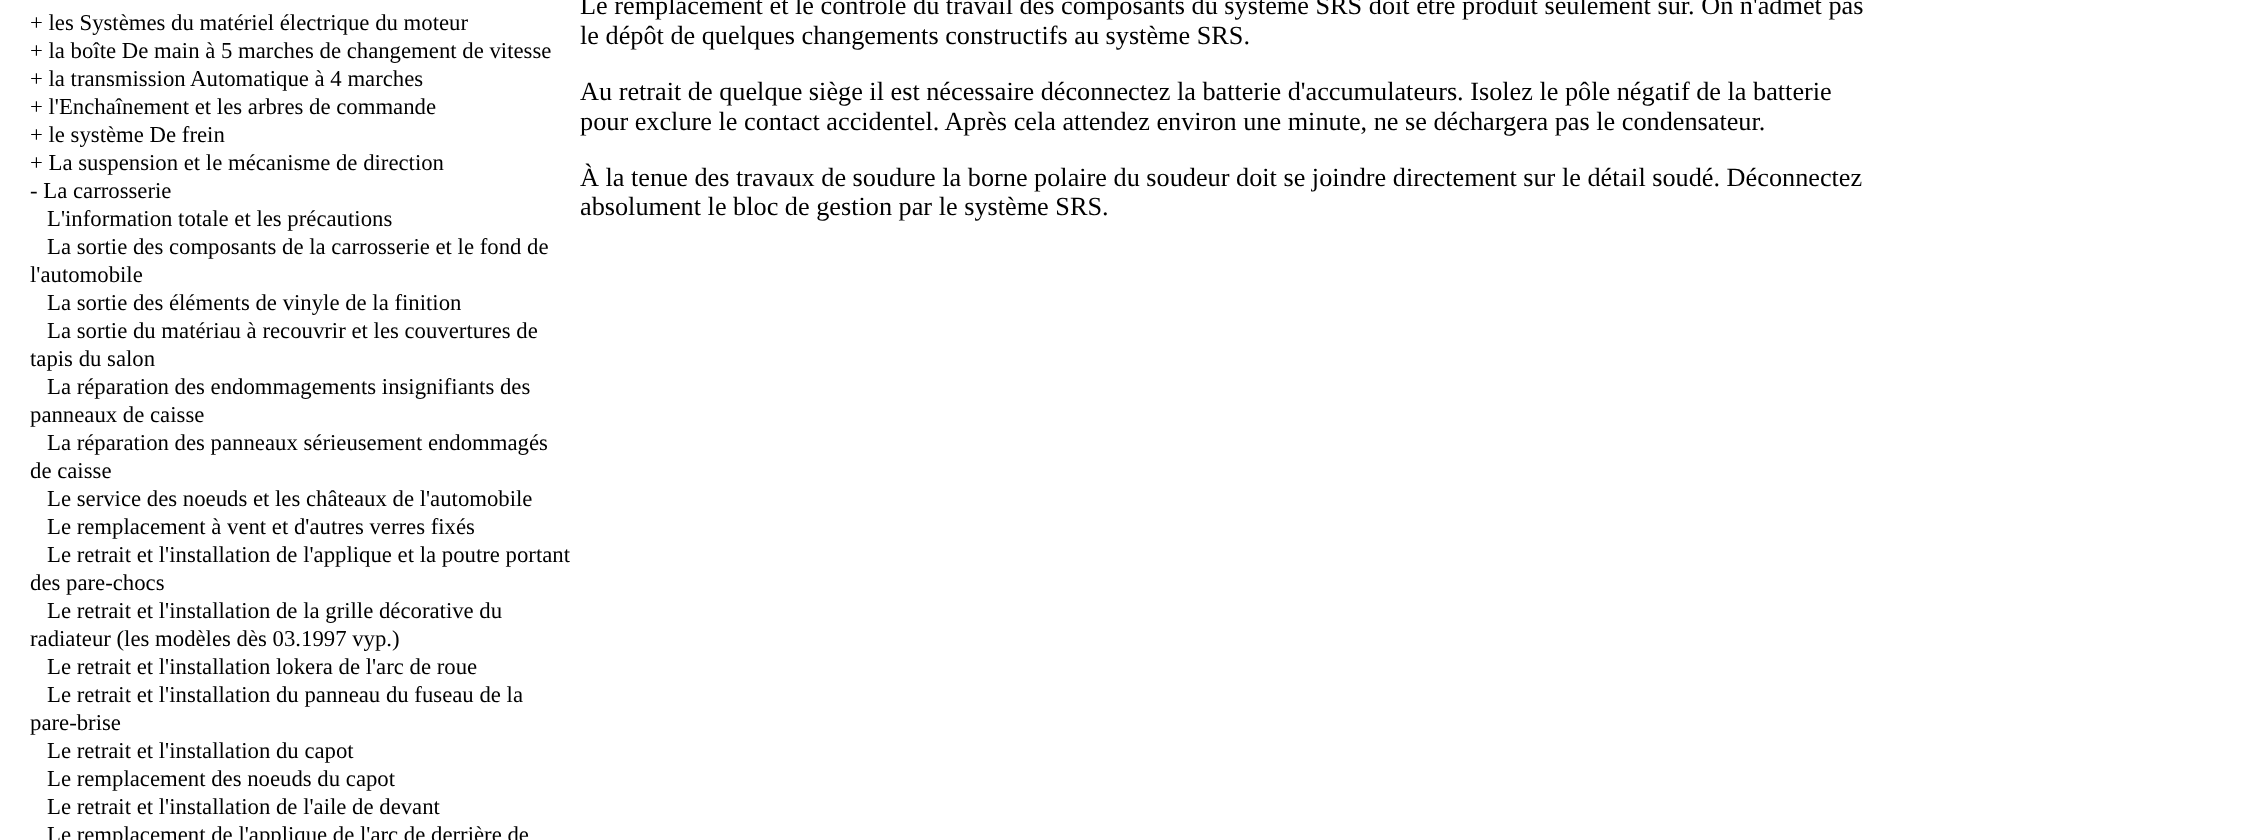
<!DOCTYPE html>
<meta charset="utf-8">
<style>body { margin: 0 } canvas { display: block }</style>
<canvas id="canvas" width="2242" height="840"></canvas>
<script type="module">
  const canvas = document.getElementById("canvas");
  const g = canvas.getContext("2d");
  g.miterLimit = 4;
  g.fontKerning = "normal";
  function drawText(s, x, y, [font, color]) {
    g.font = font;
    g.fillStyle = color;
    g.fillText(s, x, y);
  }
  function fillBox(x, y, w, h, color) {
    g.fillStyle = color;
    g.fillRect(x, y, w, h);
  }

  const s1 = ["22.75px Liberation Serif", "#000000"];
  const s2 = ["26.25px Liberation Serif", "#000000"];

  fillBox(0, 0, 2242, 840, "#FFFFFF");
  drawText("+ les Systèmes du matériel électrique du moteur", 30, 30, s1);
  drawText("+ la boîte De main à 5 marches de changement de vitesse", 30, 58, s1);
  drawText("+ la transmission Automatique à 4 marches", 30, 86, s1);
  drawText("+ l'Enchaînement et les arbres de commande", 30, 114, s1);
  drawText("+ le système De frein", 30, 142, s1);
  drawText("+ La suspension et le mécanisme de direction", 30, 170, s1);
  drawText("- La carrosserie", 30, 198, s1);
  drawText("L'information totale et les précautions", 47, 226, s1);
  drawText("La sortie des composants de la carrosserie et le fond de", 47, 254, s1);
  drawText("l'automobile", 30, 282, s1);
  drawText("La sortie des éléments de vinyle de la finition", 47, 310, s1);
  drawText("La sortie du matériau à recouvrir et les couvertures de", 47, 338, s1);
  drawText("tapis du salon", 30, 366, s1);
  drawText("La réparation des endommagements insignifiants des", 47, 394, s1);
  drawText("panneaux de caisse", 30, 422, s1);
  drawText("La réparation des panneaux sérieusement endommagés", 47, 450, s1);
  drawText("de caisse", 30, 478, s1);
  drawText("Le service des noeuds et les châteaux de l'automobile", 47, 506, s1);
  drawText("Le remplacement à vent et d'autres verres fixés", 47, 534, s1);
  drawText("Le retrait et l'installation de l'applique et la poutre portant", 47, 562, s1);
  drawText("des pare-chocs", 30, 590, s1);
  drawText("Le retrait et l'installation de la grille décorative du", 47, 618, s1);
  drawText("radiateur (les modèles dès 03.1997 vyp.)", 30, 646, s1);
  drawText("Le retrait et l'installation lokera de l'arc de roue", 47, 674, s1);
  drawText("Le retrait et l'installation du panneau du fuseau de la", 47, 702, s1);
  drawText("pare-brise", 30, 730, s1);
  drawText("Le retrait et l'installation du capot", 47, 758, s1);
  drawText("Le remplacement des noeuds du capot", 47, 786, s1);
  drawText("Le retrait et l'installation de l'aile de devant", 47, 814, s1);
  drawText("Le remplacement de l'applique de l'arc de derrière de", 47, 842, s1);
  drawText("Le remplacement et le contrôle du travail des composants du système SRS doit être produit seulement sur. On n'admet pas", 580, 14, s2);
  drawText("le dépôt de quelques changements constructifs au système SRS.", 580, 44, s2);
  drawText("Au retrait de quelque siège il est nécessaire déconnectez la batterie d'accumulateurs. Isolez le pôle négatif de la batterie", 580, 100, s2);
  drawText("pour exclure le contact accidentel. Après cela attendez environ une minute, ne se déchargera pas le condensateur.", 580, 130, s2);
  drawText("À la tenue des travaux de soudure la borne polaire du soudeur doit se joindre directement sur le détail soudé. Déconnectez", 580, 186, s2);
  drawText("absolument le bloc de gestion par le système SRS.", 580, 215, s2);
</script>
